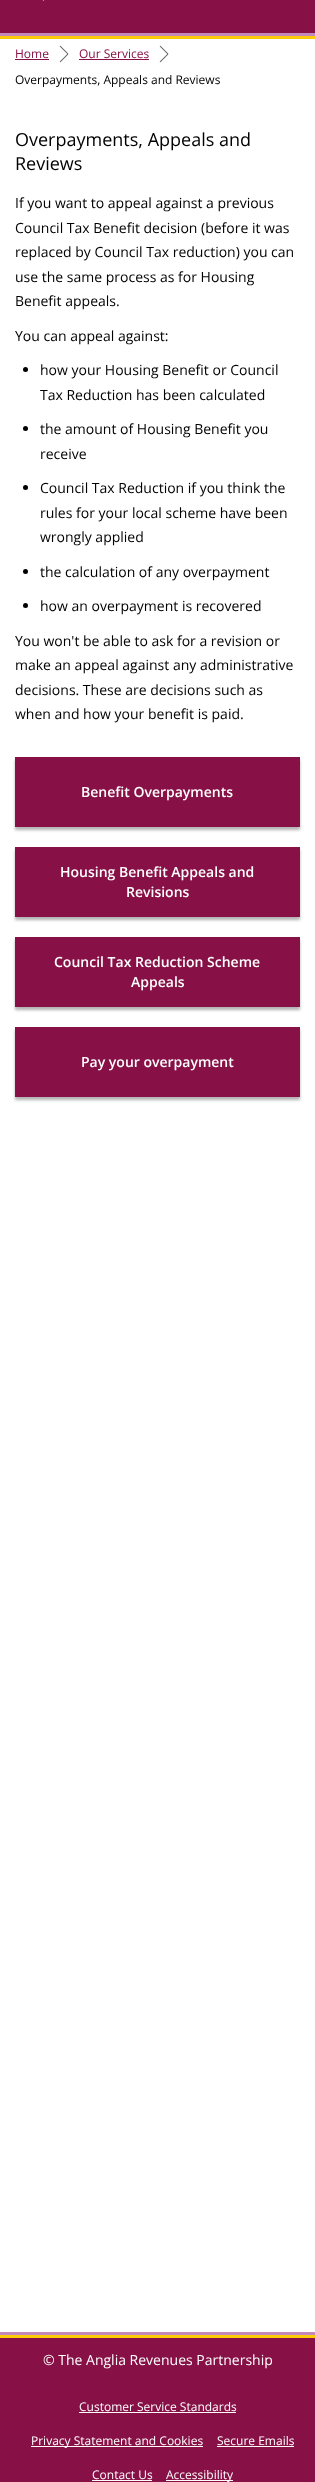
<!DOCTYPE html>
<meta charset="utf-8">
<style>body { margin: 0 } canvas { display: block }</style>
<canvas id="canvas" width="315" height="2482"></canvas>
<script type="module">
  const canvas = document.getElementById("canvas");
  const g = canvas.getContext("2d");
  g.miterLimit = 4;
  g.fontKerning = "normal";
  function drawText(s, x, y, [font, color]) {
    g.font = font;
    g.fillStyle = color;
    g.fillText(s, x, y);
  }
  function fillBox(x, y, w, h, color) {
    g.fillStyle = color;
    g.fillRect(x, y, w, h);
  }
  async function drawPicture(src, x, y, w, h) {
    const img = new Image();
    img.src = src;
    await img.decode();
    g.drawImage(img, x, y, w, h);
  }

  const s1 = ["12px Open Sans", "#871146"];
  const s2 = ["12px Open Sans", "#000000"];
  const s3 = ["18px Open Sans", "#000000"];
  const s4 = ["14px Open Sans", "#000000"];
  const s5 = ["600 14px Open Sans", "#FFFFFF"];
  const s6 = ["14px Open Sans", "#FFFFFF"];
  const s7 = ["12px Open Sans", "#FFFFFF"];

  fillBox(0, 0, 315, 2482, "#FFFFFF");
  g.strokeStyle = "#FECB09";
  g.lineWidth = 3;
  g.strokeRect(-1.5, -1.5, 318, 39);
  fillBox(0, 0, 315, 33, "#871146");
  fillBox(0, 33, 315, 3, "#C389BC");
  await drawPicture("pic1.png", 42, 0, 2, 1);
  await drawPicture("pic2.png", 59, 45, 10, 18);
  drawText("Home", 15, 58, s1);
  fillBox(15, 59, 34, 1, "#871146");
  await drawPicture("pic2.png", 159, 45, 10, 18);
  drawText("Our Services", 79, 58, s1);
  fillBox(79, 59, 70, 1, "#871146");
  drawText("Overpayments, Appeals and Reviews", 15, 84, s2);
  drawText("Overpayments, Appeals and", 15, 146, s3);
  drawText("Reviews", 15, 170, s3);
  drawText("If you want to appeal against a previous", 15, 208, s4);
  drawText("Council Tax Benefit decision (before it was", 15, 233, s4);
  drawText("replaced by Council Tax reduction) you can", 15, 257, s4);
  drawText("use the same process as for Housing", 15, 282, s4);
  drawText("Benefit appeals.", 15, 306, s4);
  drawText("You can appeal against:", 15, 341, s4);
  g.beginPath();
  g.arc(25.5, 369.5, 2.5, 0, Math.PI * 2);
  g.fill();
  drawText("how your Housing Benefit or Council", 40, 375, s4);
  drawText("Tax Reduction has been calculated", 40, 400, s4);
  g.beginPath();
  g.arc(25.5, 428.5, 2.5, 0, Math.PI * 2);
  g.fill();
  drawText("the amount of Housing Benefit you", 40, 434, s4);
  drawText("receive", 40, 459, s4);
  g.beginPath();
  g.arc(25.5, 487.5, 2.5, 0, Math.PI * 2);
  g.fill();
  drawText("Council Tax Reduction if you think the", 40, 493, s4);
  drawText("rules for your local scheme have been", 40, 518, s4);
  drawText("wrongly applied", 40, 542, s4);
  g.beginPath();
  g.arc(25.5, 571.5, 2.5, 0, Math.PI * 2);
  g.fill();
  drawText("the calculation of any overpayment", 40, 577, s4);
  g.beginPath();
  g.arc(25.5, 605.5, 2.5, 0, Math.PI * 2);
  g.fill();
  drawText("how an overpayment is recovered", 40, 611, s4);
  drawText("You won't be able to ask for a revision or", 15, 646, s4);
  drawText("make an appeal against any administrative", 15, 670, s4);
  drawText("decisions. These are decisions such as", 15, 695, s4);
  drawText("when and how your benefit is paid.", 15, 719, s4);
  g.fillStyle = "rgba(0, 0, 0, 0.3)";
  g.filter = "blur(1.5px)";
  g.beginPath();
  g.rect(15, 760, 285, 70);
  g.fill();
  g.filter = "none";
  fillBox(15, 757, 285, 70, "#871146");
  drawText("Benefit Overpayments", 81, 797, s5);
  g.fillStyle = "rgba(0, 0, 0, 0.3)";
  g.filter = "blur(1.5px)";
  g.beginPath();
  g.rect(15, 850, 285, 70);
  g.fill();
  g.filter = "none";
  fillBox(15, 847, 285, 70, "#871146");
  drawText("Housing Benefit Appeals and", 60, 877, s5);
  drawText("Revisions", 126, 897, s5);
  g.fillStyle = "rgba(0, 0, 0, 0.3)";
  g.filter = "blur(1.5px)";
  g.beginPath();
  g.rect(15, 940, 285, 70);
  g.fill();
  g.filter = "none";
  fillBox(15, 937, 285, 70, "#871146");
  drawText("Council Tax Reduction Scheme", 54, 967, s5);
  drawText("Appeals", 131, 987, s5);
  g.fillStyle = "rgba(0, 0, 0, 0.3)";
  g.filter = "blur(1.5px)";
  g.beginPath();
  g.rect(15, 1030, 285, 70);
  g.fill();
  g.filter = "none";
  fillBox(15, 1027, 285, 70, "#871146");
  drawText("Pay your overpayment", 81, 1067, s5);
  fillBox(0, 2332, 315, 3, "#C389BC");
  fillBox(0, 2338, 315, 144, "#871146");
  fillBox(0, 2335, 315, 3, "#FECB09");
  drawText("© The Anglia Revenues Partnership", 43, 2365, s6);
  drawText("Customer Service Standards", 79, 2411, s7);
  fillBox(79, 2412, 157, 1, "#FFFFFF");
  fillBox(31, 2446, 172, 1, "#FFFFFF");
  drawText("Privacy Statement and Cookies", 31, 2445, s7);
  drawText("Secure Emails", 217, 2445, s7);
  fillBox(217, 2446, 77, 1, "#FFFFFF");
  drawText("Contact Us", 92, 2479, s7);
  fillBox(92, 2480, 60, 1, "#FFFFFF");
  fillBox(166, 2480, 67, 1, "#FFFFFF");
  drawText("Accessibility", 166, 2479, s7);
</script>
